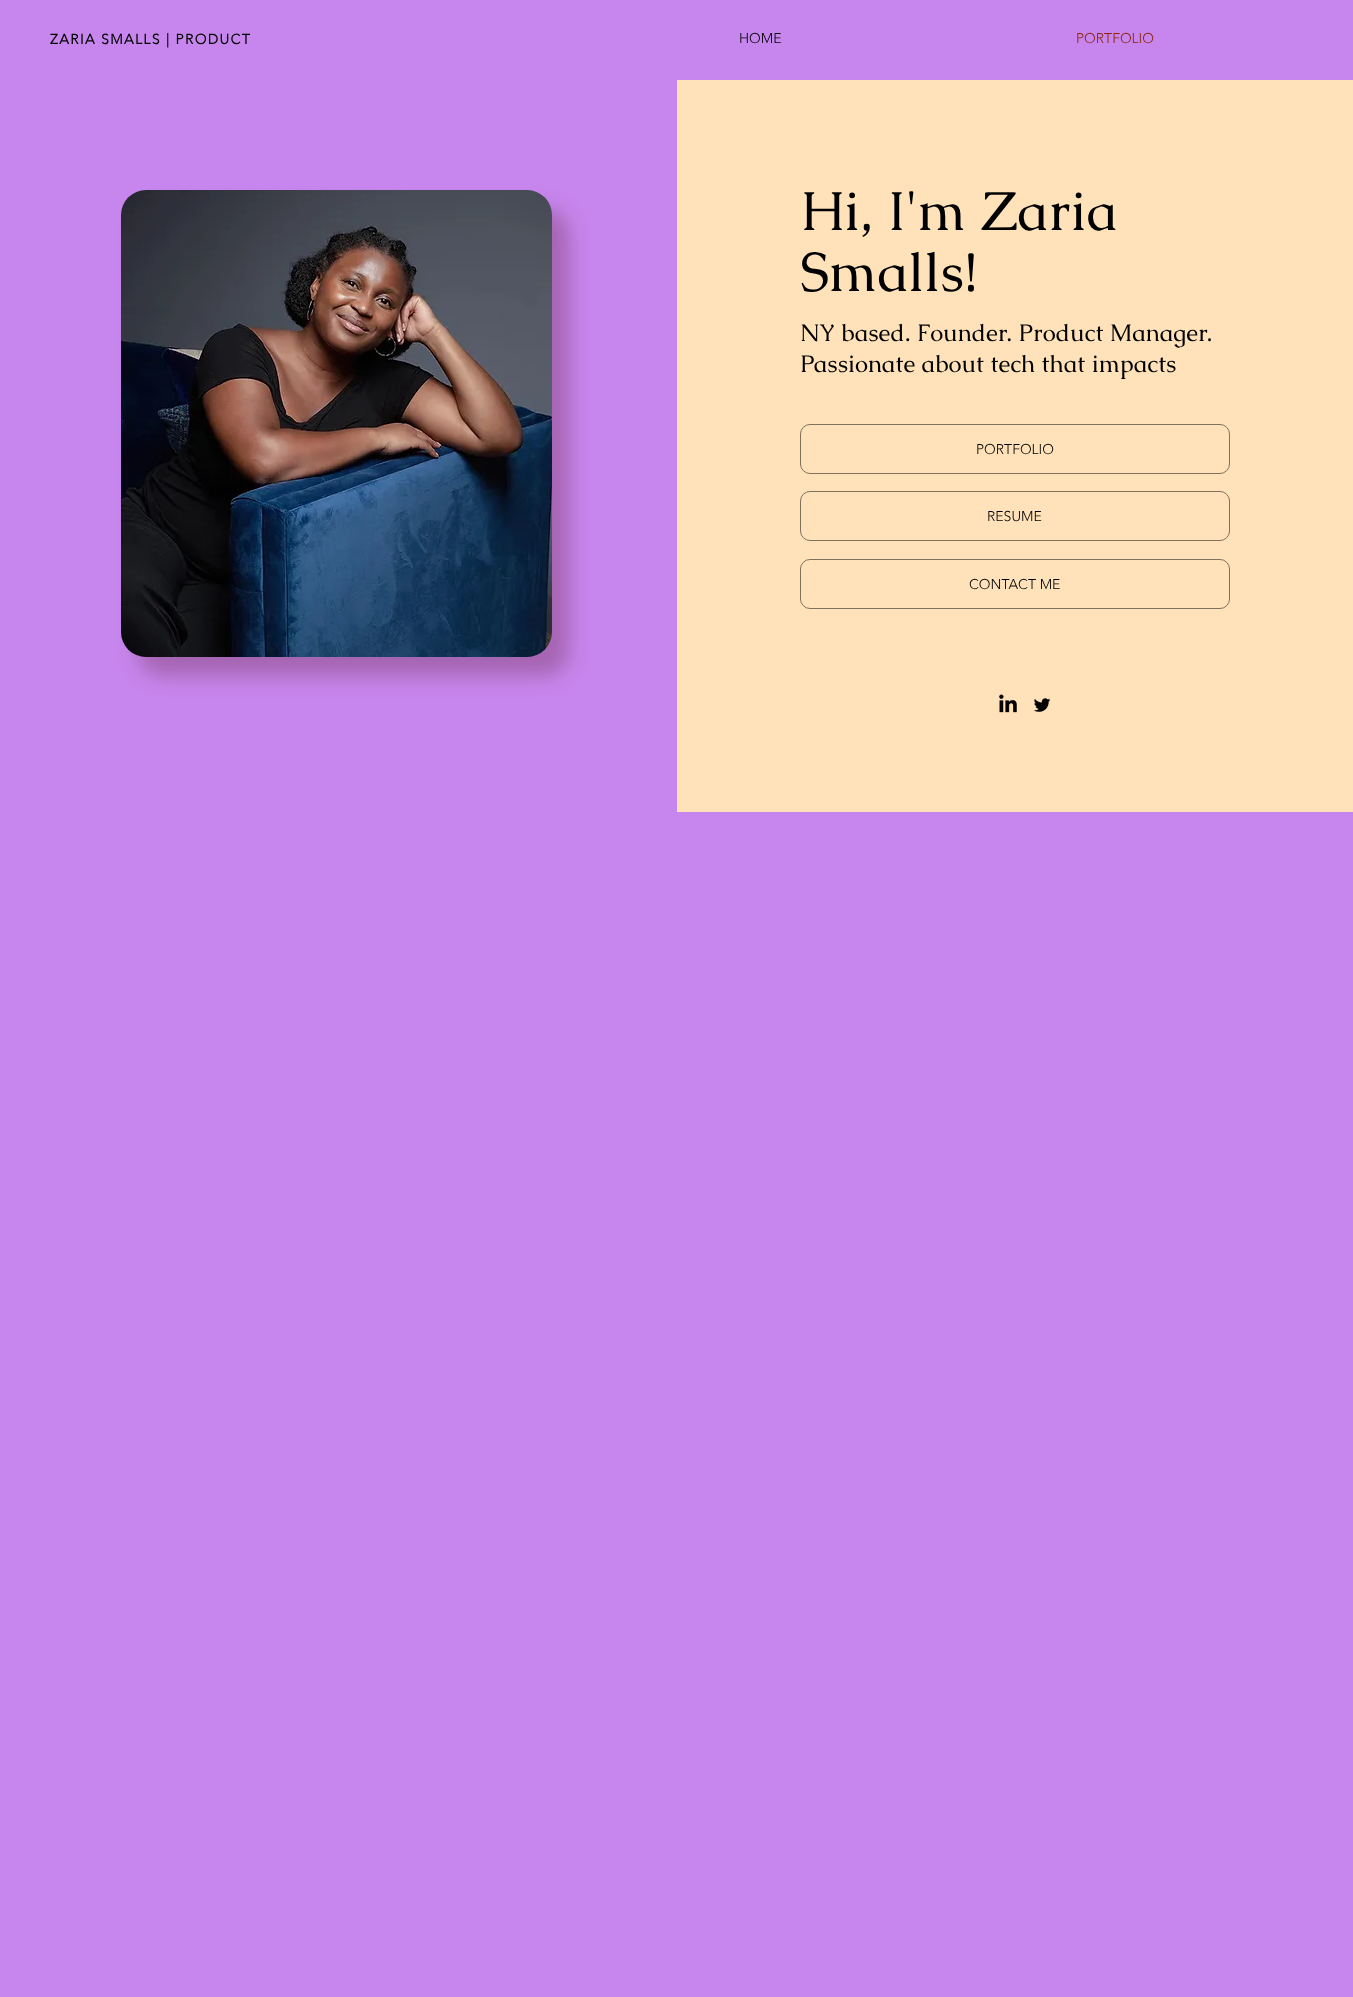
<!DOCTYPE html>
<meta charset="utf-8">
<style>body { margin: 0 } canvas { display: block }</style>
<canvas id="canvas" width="1353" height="1997"></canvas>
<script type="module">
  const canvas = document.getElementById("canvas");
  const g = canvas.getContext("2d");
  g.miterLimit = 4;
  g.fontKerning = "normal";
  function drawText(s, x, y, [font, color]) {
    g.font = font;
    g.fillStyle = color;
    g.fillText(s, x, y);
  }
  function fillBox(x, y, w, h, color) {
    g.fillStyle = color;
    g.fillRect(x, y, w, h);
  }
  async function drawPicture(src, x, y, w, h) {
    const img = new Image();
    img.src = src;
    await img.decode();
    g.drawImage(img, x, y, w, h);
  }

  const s1 = ["bold 14px 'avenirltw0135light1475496'", "#000000"];
  const s2 = ["300 14px 'avenirltw0135light1475496'", "#000000"];
  const s3 = ["300 14px 'avenirltw0135light1475496'", "#8C230B"];
  const s4 = ["55px Caudex", "#000000"];
  const s5 = ["24px Caudex", "#000000"];

  fillBox(0, 0, 1353, 1997, "#C786ED");
  g.letterSpacing = "1.4px";
  drawText("ZARIA SMALLS | PRODUCT", 50, 44, s1);
  g.letterSpacing = "0px";
  drawText("HOME", 739, 43, s2);
  drawText("PORTFOLIO", 1076, 43, s3);
  g.fillStyle = "rgba(85, 22, 34, 0.29)";
  g.filter = "blur(10px)";
  g.beginPath();
  g.roundRect(138, 209, 431, 467, 25);
  g.fill();
  g.filter = "none";
  await drawPicture("pic1.png", 121, 190, 431, 467);
  fillBox(677, 80, 676, 732, "#FFE2B9");
  drawText("Hi, I'm Zaria", 800, 230, s4);
  drawText("Smalls!", 800, 291, s4);
  drawText("NY based. Founder. Product Manager.", 800, 341, s5);
  drawText("Passionate about tech that impacts", 800, 372, s5);
  g.beginPath();
  g.roundRect(800.5, 424.5, 429, 49, 9.5);
  g.strokeStyle = "#80715D";
  g.stroke();
  drawText("PORTFOLIO", 976, 454, s2);
  g.beginPath();
  g.roundRect(800.5, 491.5, 429, 49, 9.5);
  g.stroke();
  drawText("RESUME", 987, 521, s2);
  g.beginPath();
  g.roundRect(800.5, 559.5, 429, 49, 9.5);
  g.stroke();
  drawText("CONTACT ME", 969, 589, s2);
  await drawPicture("pic2.png", 999, 694, 18, 19);
  await drawPicture("pic3.png", 1034, 698, 17, 14);
</script>
